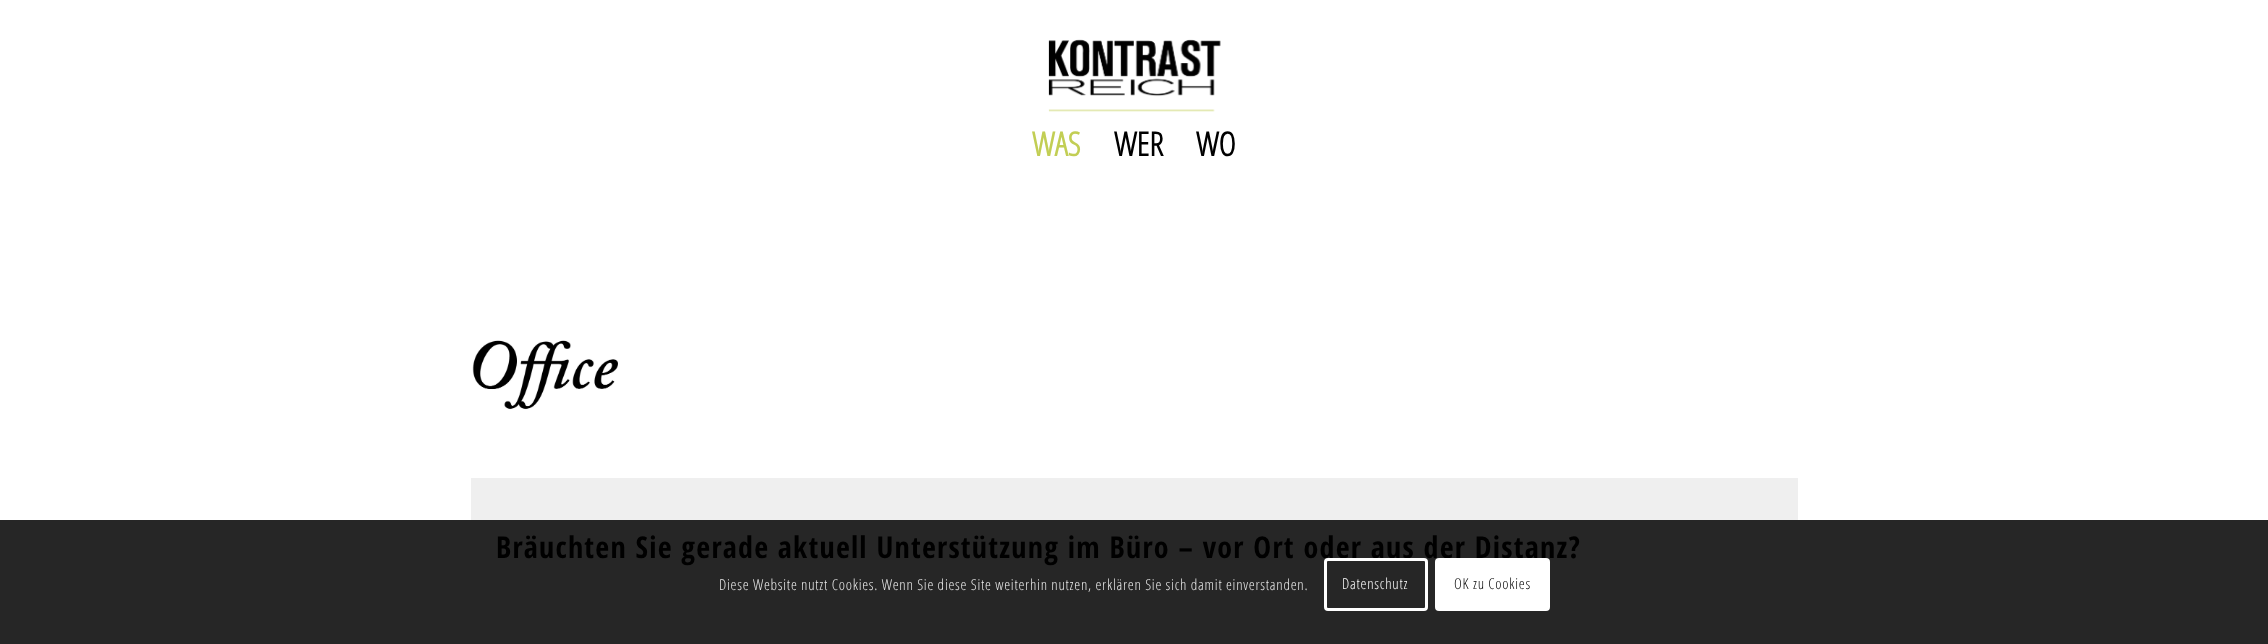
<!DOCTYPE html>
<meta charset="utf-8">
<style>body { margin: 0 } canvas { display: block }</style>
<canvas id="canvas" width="2268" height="644"></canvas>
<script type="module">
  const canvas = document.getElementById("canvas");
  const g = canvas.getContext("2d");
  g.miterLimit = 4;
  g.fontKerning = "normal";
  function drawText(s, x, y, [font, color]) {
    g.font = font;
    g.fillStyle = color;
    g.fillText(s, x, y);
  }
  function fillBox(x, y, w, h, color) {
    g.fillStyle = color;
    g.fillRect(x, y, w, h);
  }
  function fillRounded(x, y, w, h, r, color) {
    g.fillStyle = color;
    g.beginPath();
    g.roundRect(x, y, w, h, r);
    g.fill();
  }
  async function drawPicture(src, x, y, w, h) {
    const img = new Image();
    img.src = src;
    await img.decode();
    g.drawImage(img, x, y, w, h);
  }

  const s1 = ["bold 33px 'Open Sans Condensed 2'", "#C2CE54"];
  const s2 = ["bold 33px 'Open Sans Condensed 2'", "#000000"];
  const s3 = ["bold 30px Open Sans Condensed", "#000000"];
  const s4 = ["300 15px Open Sans Condensed", "#E9E9E9"];
  const s5 = ["300 15px Open Sans Condensed", "#FFFFFF"];
  const s6 = ["300 15px Open Sans Condensed", "#000000"];

  fillBox(0, 0, 2268, 644, "#FFFFFF");
  fillBox(0, 520, 2268, 124, "#262626");
  await drawPicture("pic1.png", 1048, 39, 173, 73);
  drawText("WAS", 1032, 156, s1);
  drawText("WER", 1114, 156, s2);
  drawText("WO", 1196, 156, s2);
  await drawPicture("pic2.png", 472, 340, 146, 70);
  fillBox(471, 478, 1327, 42, "#EFEFEF");
  g.letterSpacing = "1.25px";
  drawText("Bräuchten Sie gerade aktuell Unterstützung im Büro – vor Ort oder aus der Distanz?", 496, 558, s3);
  g.letterSpacing = "0.75px";
  drawText("Diese Website nutzt Cookies. Wenn Sie diese Site weiterhin nutzen, erklären Sie sich damit einverstanden.", 719, 590, s4);
  g.beginPath();
  g.roundRect(1325.5, 559.5, 101, 50, 2.5);
  g.strokeStyle = "#FFFFFF";
  g.lineWidth = 3;
  g.stroke();
  drawText("Datenschutz", 1342, 589, s5);
  fillRounded(1435, 558, 115, 53, 4, "#FFFFFF");
  drawText("OK zu Cookies", 1454, 589, s6);
</script>
